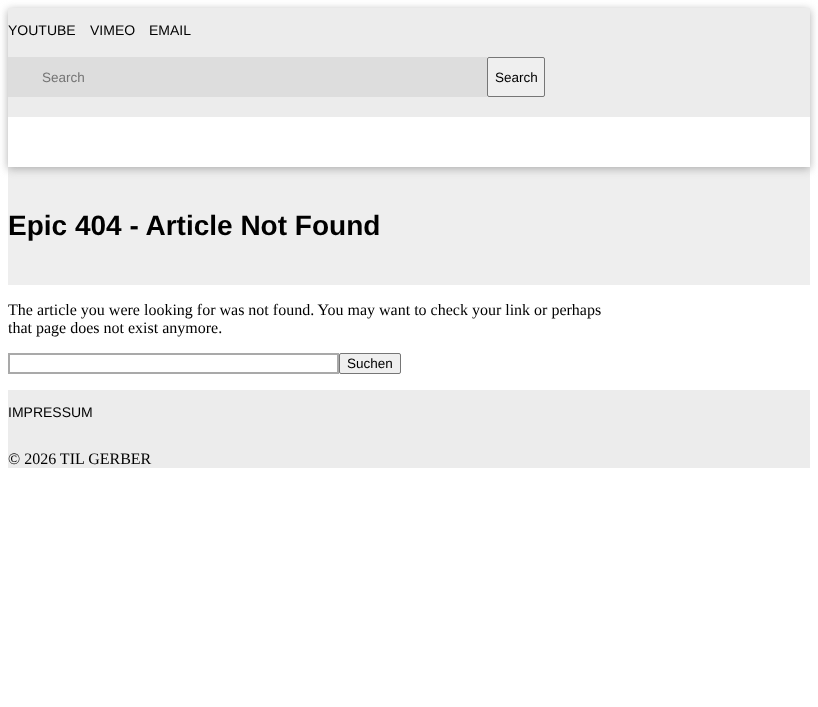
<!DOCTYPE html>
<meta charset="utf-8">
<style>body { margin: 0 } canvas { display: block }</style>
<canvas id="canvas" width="818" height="707"></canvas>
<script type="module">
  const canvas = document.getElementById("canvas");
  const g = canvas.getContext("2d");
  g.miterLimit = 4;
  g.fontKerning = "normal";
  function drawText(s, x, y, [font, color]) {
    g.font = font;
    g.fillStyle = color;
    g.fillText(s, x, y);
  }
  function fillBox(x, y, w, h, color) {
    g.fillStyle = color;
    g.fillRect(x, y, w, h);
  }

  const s1 = ["14px Liberation Sans", "#000000"];
  const s2 = ["13.5px Liberation Sans", "#757575"];
  const s3 = ["13.5px Liberation Sans", "#000000"];
  const s4 = ["bold 28px Liberation Sans", "#000000"];
  const s5 = ["16px Liberation Serif", "#000000"];

  fillBox(0, 0, 818, 707, "#FFFFFF");
  fillBox(8, 167, 802, 118, "#EEEEEE");
  g.save();
  g.beginPath();
  g.moveTo(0, 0);
  g.lineTo(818, 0);
  g.lineTo(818, 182);
  g.lineTo(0, 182);
  g.closePath();
  g.moveTo(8, 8);
  g.lineTo(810, 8);
  g.lineTo(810, 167);
  g.lineTo(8, 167);
  g.closePath();
  g.clip("evenodd");
  g.fillStyle = "#AEAEAE";
  g.filter = "blur(4px)";
  g.beginPath();
  g.rect(8, 10, 802, 159);
  g.fill();
  g.filter = "none";
  g.restore();
  fillBox(8, 8, 802, 109, "#ECECEC");
  drawText("YOUTUBE", 8, 35, s1);
  drawText("VIMEO", 90, 35, s1);
  drawText("EMAIL", 149, 35, s1);
  fillBox(8, 57, 479, 40, "#DDDDDD");
  drawText("Search", 42, 82, s2);
  g.fillStyle = "#EFEFEF";
  g.beginPath();
  g.roundRect(487.5, 57.5, 57, 39, 1.5);
  g.fill();
  g.strokeStyle = "#767676";
  g.stroke();
  drawText("Search", 495, 82, s3);
  drawText("Epic 404 - Article Not Found", 8, 235, s4);
  drawText("The article you were looking for was not found. You may want to check your link or perhaps", 8, 315, s5);
  drawText("that page does not exist anymore.", 8, 333, s5);
  g.strokeStyle = "#A9A9A9";
  g.lineWidth = 2;
  g.strokeRect(9, 354, 329, 19);
  g.fillStyle = "#EFEFEF";
  g.beginPath();
  g.roundRect(339.5, 353.5, 61, 20, 1.5);
  g.fill();
  g.strokeStyle = "#767676";
  g.lineWidth = 1;
  g.stroke();
  drawText("Suchen", 347, 368, s3);
  fillBox(8, 390, 802, 78, "#ECECEC");
  drawText("IMPRESSUM", 8, 417, s1);
  drawText("© 2026 TIL GERBER", 8, 464, s5);
</script>
